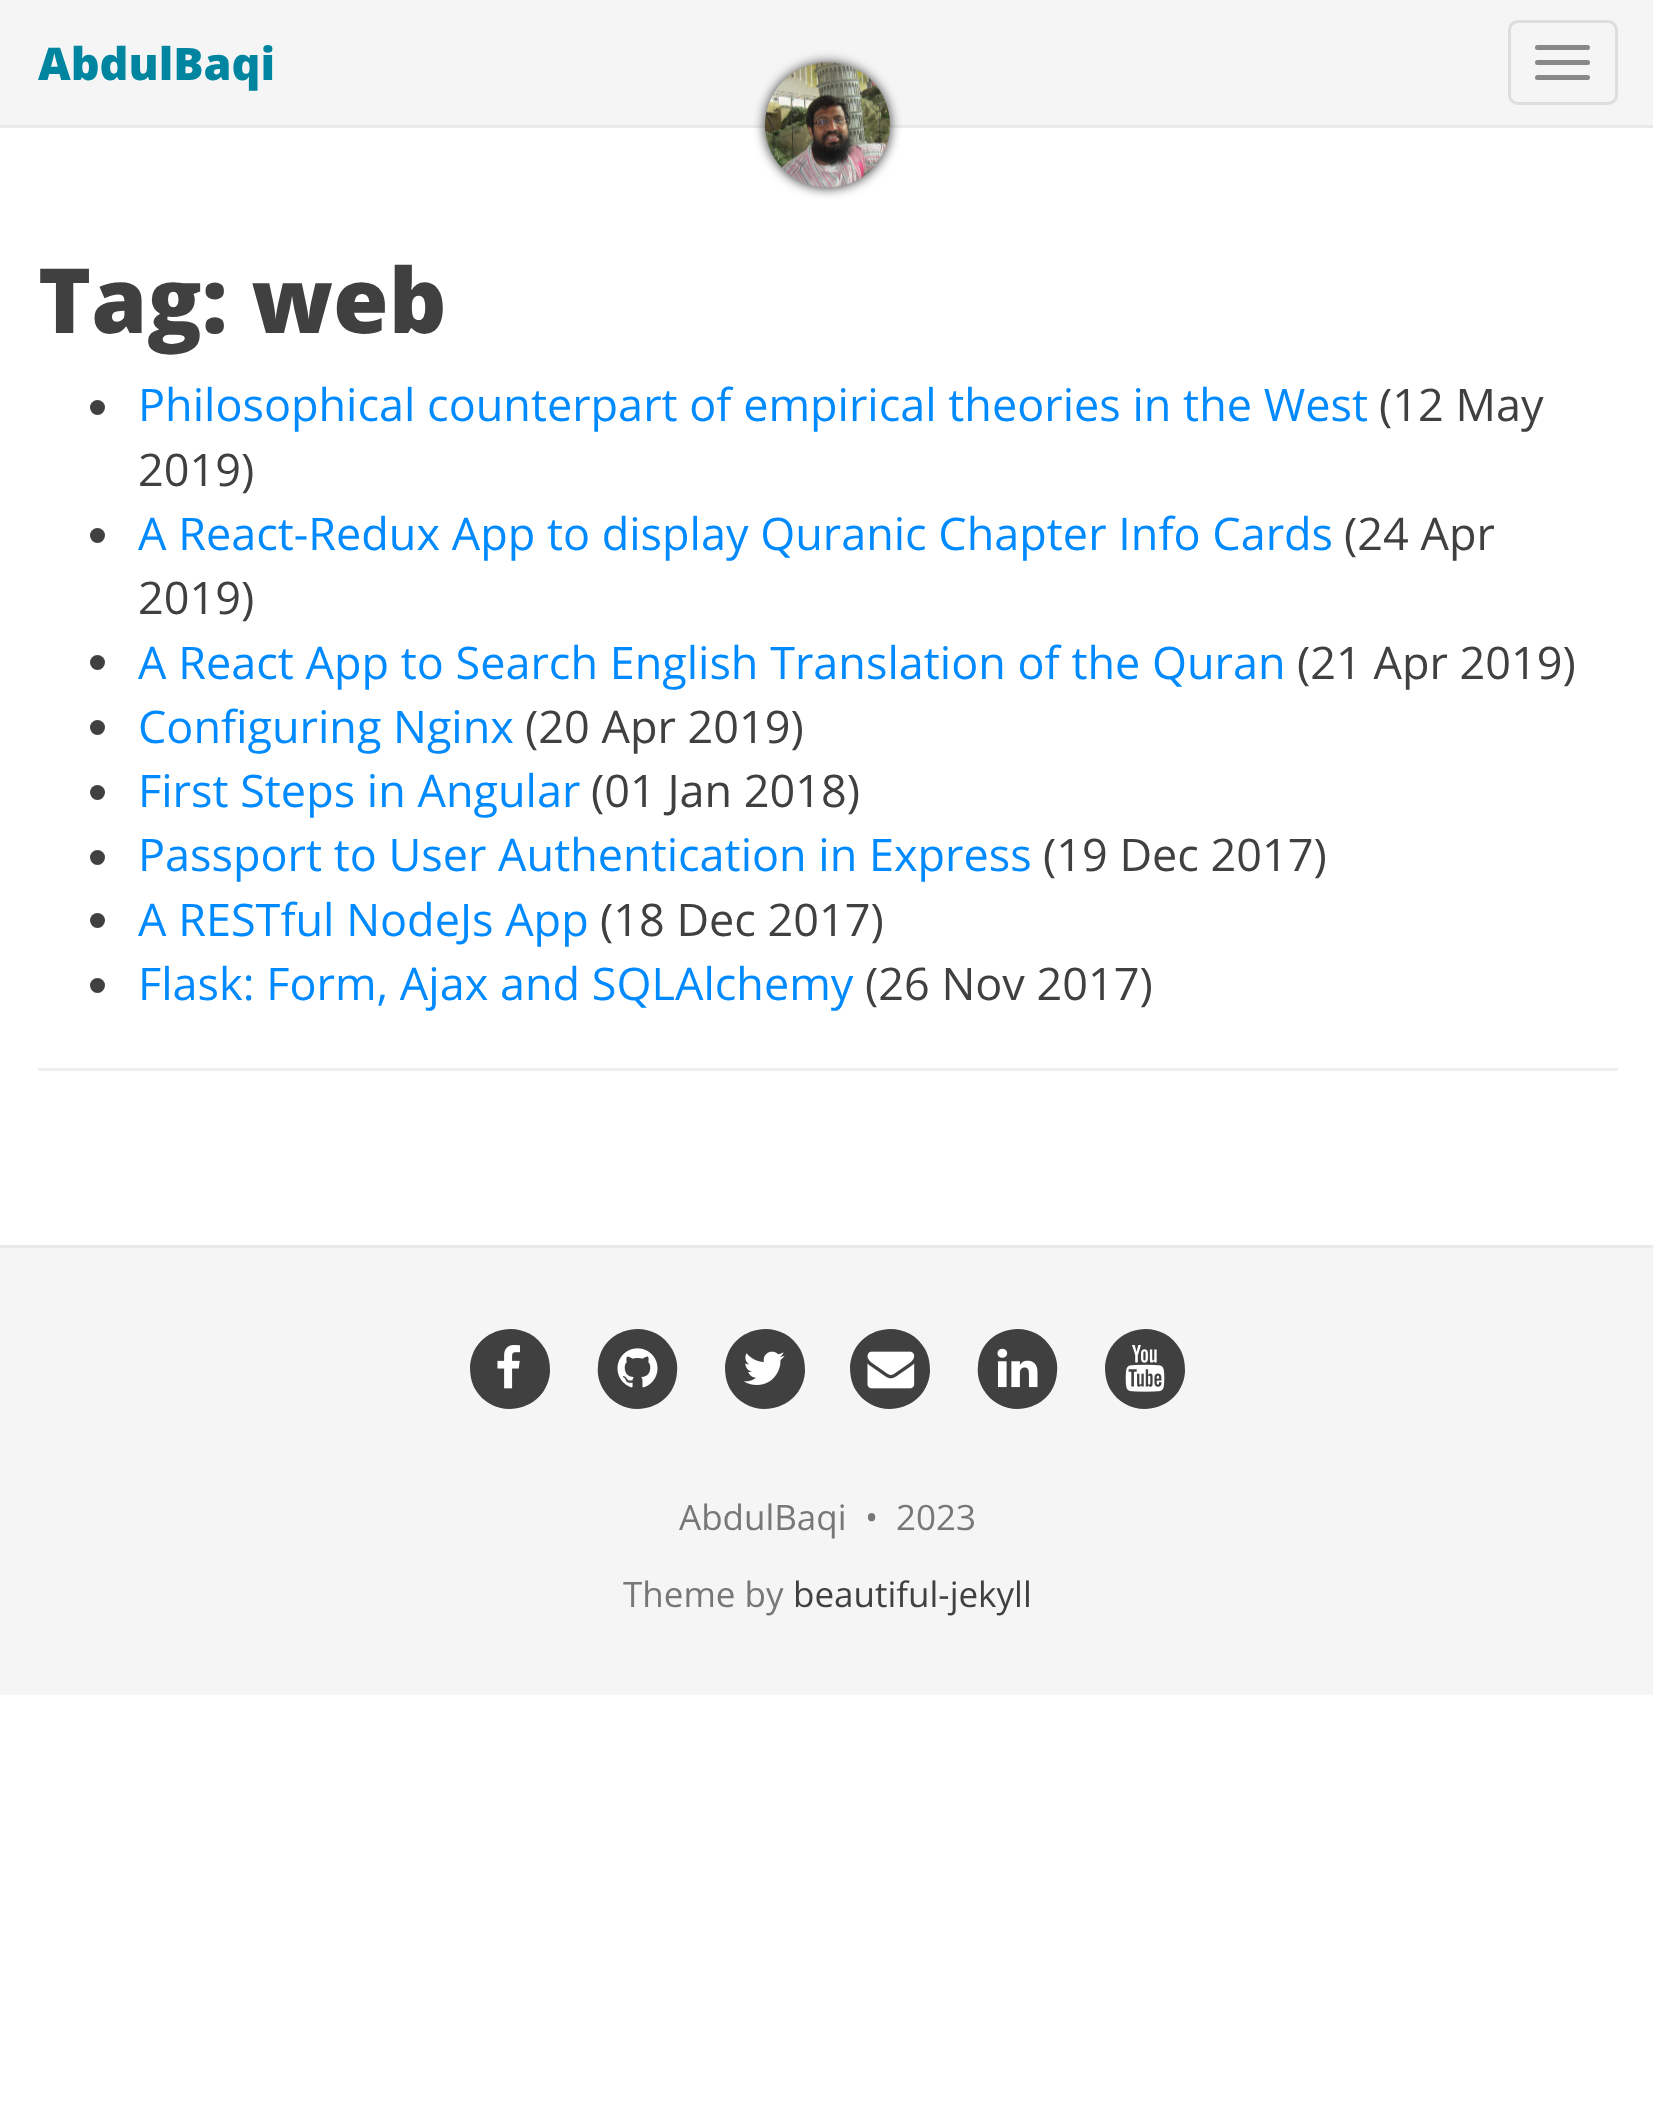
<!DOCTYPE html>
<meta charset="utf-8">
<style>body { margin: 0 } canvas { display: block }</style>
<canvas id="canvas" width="1653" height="2112"></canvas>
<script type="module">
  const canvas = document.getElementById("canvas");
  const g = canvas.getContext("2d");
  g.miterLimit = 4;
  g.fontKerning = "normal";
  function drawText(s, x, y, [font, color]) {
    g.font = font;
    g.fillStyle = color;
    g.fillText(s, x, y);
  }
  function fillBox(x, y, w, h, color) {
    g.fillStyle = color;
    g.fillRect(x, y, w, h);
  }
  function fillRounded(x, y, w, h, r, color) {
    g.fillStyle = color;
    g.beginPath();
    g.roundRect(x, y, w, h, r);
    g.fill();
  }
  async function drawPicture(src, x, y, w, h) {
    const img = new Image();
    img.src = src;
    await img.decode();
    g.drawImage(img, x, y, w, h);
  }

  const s1 = ["800 45px Open Sans", "#0085A1"];
  const s2 = ["800 90px Open Sans", "#404040"];
  const s3 = ["45px Open Sans", "#008AFF"];
  const s4 = ["45px Open Sans", "#404040"];
  const s5 = ["35px Open Sans", "#777777"];
  const s6 = ["35px Open Sans", "#404040"];

  fillBox(0, 0, 1653, 2112, "#FFFFFF");
  fillBox(0, 0, 1653, 125, "#F5F5F5");
  fillBox(0, 125, 1653, 3, "#EAEAEA");
  drawText("AbdulBaqi", 38, 80, s1);
  g.beginPath();
  g.roundRect(1509.5, 21.5, 107, 82, 8.5);
  g.strokeStyle = "#DDDDDD";
  g.lineWidth = 3;
  g.stroke();
  fillRounded(1535, 45, 55, 5, 2.5, "#888888");
  fillRounded(1535, 60, 55, 5, 2.5, "#888888");
  fillRounded(1535, 75, 55, 5, 2.5, "#888888");
  g.fillStyle = "rgba(0, 0, 0, 0.8)";
  g.filter = "blur(6px)";
  g.beginPath();
  g.roundRect(765, 63, 125, 125, 62.5);
  g.fill();
  g.filter = "none";
  await drawPicture("pic1.png", 765, 62, 125, 126);
  drawText("Tag: web", 38, 333, s2);
  g.beginPath();
  g.arc(97.5, 407.5, 7.5, 0, Math.PI * 2);
  g.fill();
  drawText("Philosophical counterpart of empirical theories in the West", 138, 421, s3);
  drawText("(12 May", 1379, 421, s4);
  drawText("2019)", 138, 486, s4);
  g.beginPath();
  g.arc(97.5, 535.5, 7.5, 0, Math.PI * 2);
  g.fill();
  drawText("A React-Redux App to display Quranic Chapter Info Cards", 138, 550, s3);
  drawText("(24 Apr", 1344, 550, s4);
  drawText("2019)", 138, 614, s4);
  g.beginPath();
  g.arc(97.5, 662.5, 7.5, 0, Math.PI * 2);
  g.fill();
  drawText("A React App to Search English Translation of the Quran", 138, 679, s3);
  drawText("(21 Apr 2019)", 1297, 679, s4);
  g.beginPath();
  g.arc(97.5, 727.5, 7.5, 0, Math.PI * 2);
  g.fill();
  drawText("Configuring Nginx", 138, 743, s3);
  drawText("(20 Apr 2019)", 525, 743, s4);
  g.beginPath();
  g.arc(97.5, 792.5, 7.5, 0, Math.PI * 2);
  g.fill();
  drawText("First Steps in Angular", 138, 807, s3);
  drawText("(01 Jan 2018)", 591, 807, s4);
  g.beginPath();
  g.arc(97.5, 857.5, 7.5, 0, Math.PI * 2);
  g.fill();
  drawText("Passport to User Authentication in Express", 138, 871, s3);
  drawText("(19 Dec 2017)", 1043, 871, s4);
  g.beginPath();
  g.arc(97.5, 920.5, 7.5, 0, Math.PI * 2);
  g.fill();
  drawText("A RESTful NodeJs App", 138, 936, s3);
  drawText("(18 Dec 2017)", 600, 936, s4);
  g.beginPath();
  g.arc(97.5, 985.5, 7.5, 0, Math.PI * 2);
  g.fill();
  drawText("Flask: Form, Ajax and SQLAlchemy", 138, 1000, s3);
  drawText("(26 Nov 2017)", 865, 1000, s4);
  fillBox(38, 1068, 1580, 3, "#EEEEEE");
  fillBox(0, 1248, 1653, 447, "#F5F5F5");
  fillBox(0, 1245, 1653, 3, "#EAEAEA");
  g.fillStyle = "#404040";
  g.beginPath();
  g.moveTo(545, 1349);
  g.bezierCurveTo(549, 1356, 550, 1364, 550, 1372);
  g.bezierCurveTo(547, 1411, 495, 1423, 475, 1389);
  g.bezierCurveTo(471, 1382, 470, 1374, 470, 1366);
  g.bezierCurveTo(473, 1327, 525, 1315, 545, 1349);
  g.closePath();
  g.fill();
  await drawPicture("pic2.png", 497, 1345, 23, 44);
  g.beginPath();
  g.moveTo(672, 1349);
  g.bezierCurveTo(676, 1356, 678, 1364, 677, 1372);
  g.bezierCurveTo(675, 1411, 623, 1423, 603, 1389);
  g.bezierCurveTo(599, 1382, 597, 1374, 598, 1366);
  g.bezierCurveTo(600, 1327, 652, 1315, 672, 1349);
  g.closePath();
  g.fill();
  await drawPicture("pic3.png", 617, 1348, 41, 40);
  g.beginPath();
  g.moveTo(800, 1349);
  g.bezierCurveTo(804, 1356, 805, 1364, 805, 1372);
  g.bezierCurveTo(802, 1411, 750, 1423, 730, 1389);
  g.bezierCurveTo(726, 1382, 725, 1374, 725, 1366);
  g.bezierCurveTo(728, 1327, 780, 1315, 800, 1349);
  g.closePath();
  g.fill();
  await drawPicture("pic4.png", 743, 1351, 42, 34);
  g.beginPath();
  g.moveTo(925, 1349);
  g.bezierCurveTo(929, 1356, 930, 1364, 930, 1372);
  g.bezierCurveTo(927, 1411, 875, 1423, 855, 1389);
  g.bezierCurveTo(851, 1382, 850, 1374, 850, 1366);
  g.bezierCurveTo(853, 1327, 905, 1315, 925, 1349);
  g.closePath();
  g.fill();
  await drawPicture("pic5.png", 867, 1351, 48, 38);
  g.beginPath();
  g.moveTo(1052, 1349);
  g.bezierCurveTo(1056, 1356, 1058, 1364, 1057, 1372);
  g.bezierCurveTo(1055, 1411, 1003, 1423, 983, 1389);
  g.bezierCurveTo(979, 1382, 977, 1374, 978, 1366);
  g.bezierCurveTo(980, 1327, 1032, 1315, 1052, 1349);
  g.closePath();
  g.fill();
  await drawPicture("pic6.png", 997, 1348, 41, 40);
  g.beginPath();
  g.moveTo(1180, 1349);
  g.bezierCurveTo(1184, 1356, 1185, 1364, 1185, 1372);
  g.bezierCurveTo(1182, 1411, 1130, 1423, 1110, 1389);
  g.bezierCurveTo(1106, 1382, 1105, 1374, 1105, 1366);
  g.bezierCurveTo(1108, 1327, 1160, 1315, 1180, 1349);
  g.closePath();
  g.fill();
  await drawPicture("pic7.png", 1125, 1345, 40, 47);
  drawText("AbdulBaqi", 679, 1530, s5);
  drawText("•", 865, 1530, s5);
  drawText("2023", 896, 1530, s5);
  drawText("Theme by", 623, 1607, s5);
  drawText("beautiful-jekyll", 793, 1607, s6);
</script>
